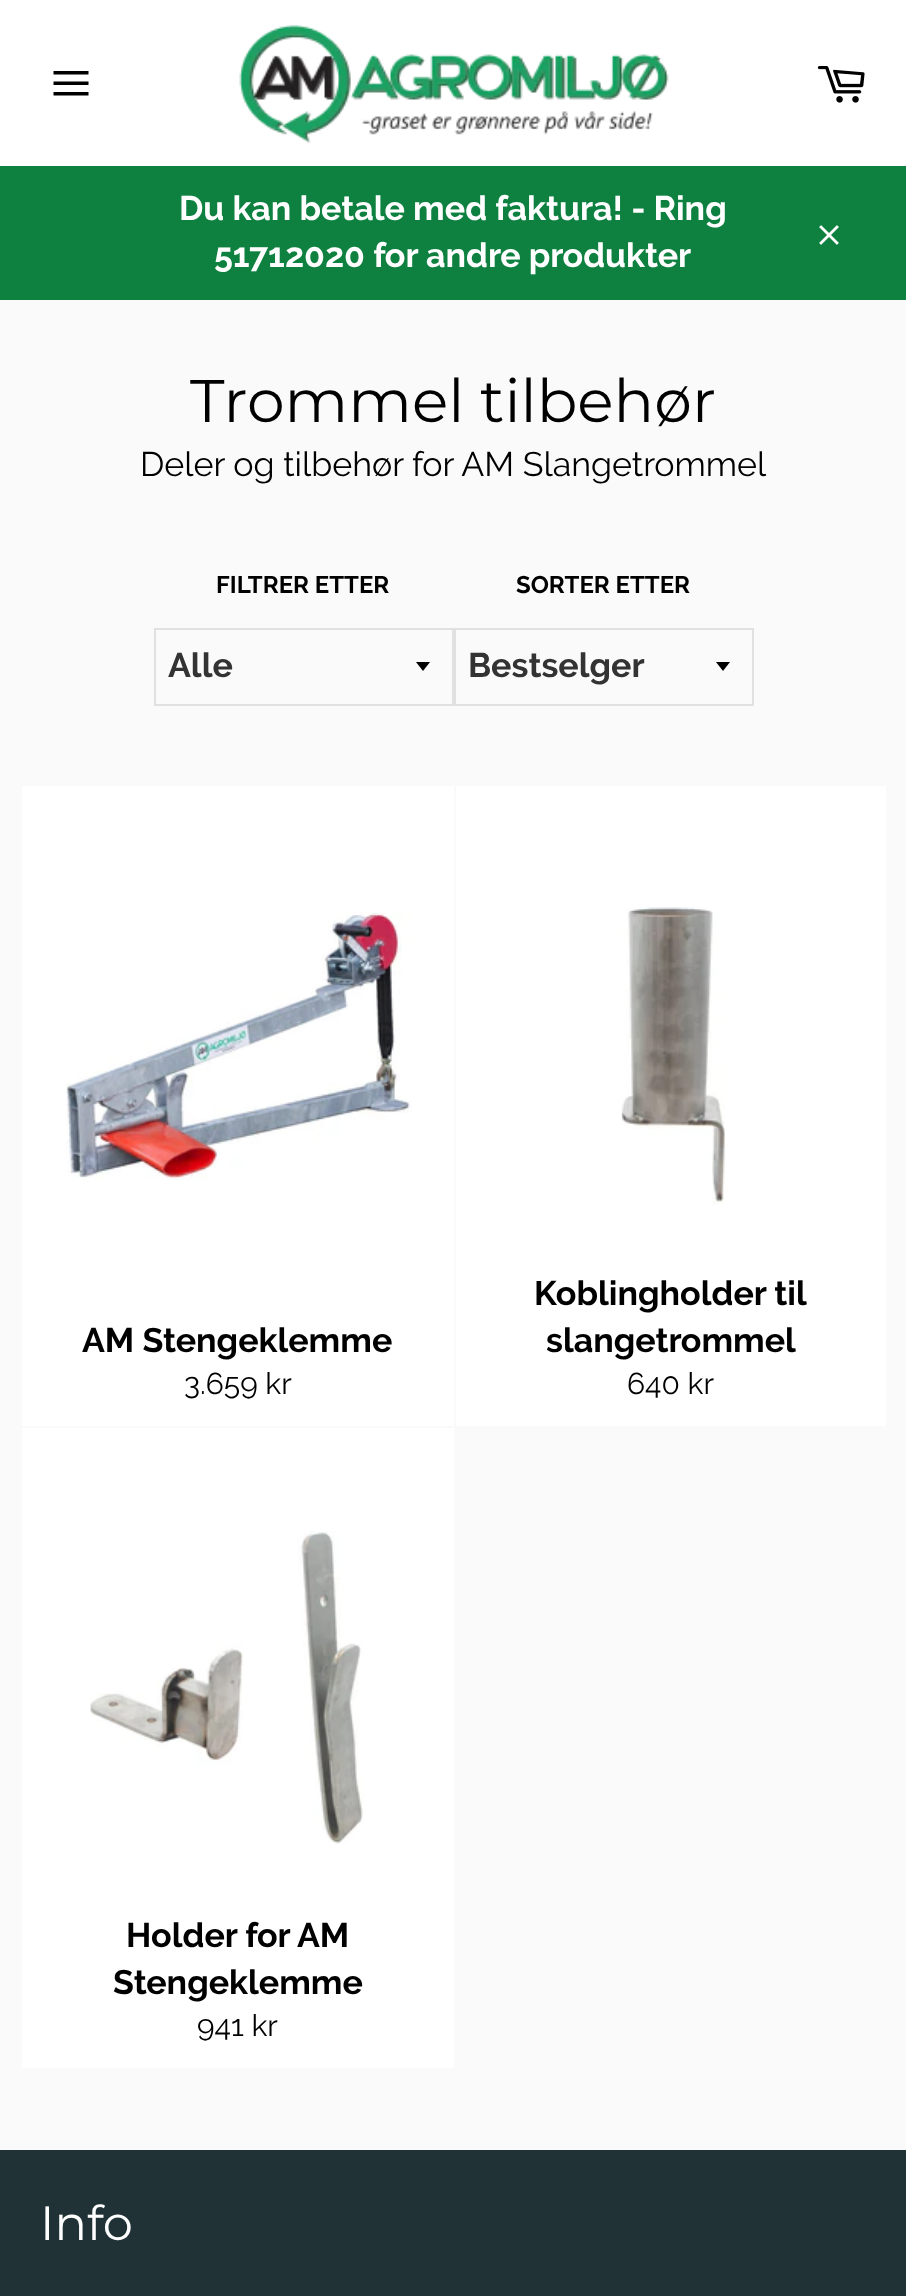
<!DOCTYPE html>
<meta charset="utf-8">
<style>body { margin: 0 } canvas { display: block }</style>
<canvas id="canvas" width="906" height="2296"></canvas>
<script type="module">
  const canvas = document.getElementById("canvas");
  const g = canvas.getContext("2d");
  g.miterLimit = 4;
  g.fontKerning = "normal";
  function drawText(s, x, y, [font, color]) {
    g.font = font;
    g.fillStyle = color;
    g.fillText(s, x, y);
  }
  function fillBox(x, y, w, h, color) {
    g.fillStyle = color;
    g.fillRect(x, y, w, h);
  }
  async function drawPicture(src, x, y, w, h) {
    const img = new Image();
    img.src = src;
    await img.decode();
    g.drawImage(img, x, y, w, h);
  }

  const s1 = ["bold 34px Raleway", "#FFFFFF"];
  const s2 = ["60px Montserrat", "#000000"];
  const s3 = ["34px Raleway", "#000000"];
  const s4 = ["bold 24px Raleway", "#000000"];
  const s5 = ["bold 34px Raleway", "#333333"];
  const s6 = ["bold 34px Raleway", "#000000"];
  const s7 = ["30px Raleway", "#000000"];
  const s8 = ["48px Montserrat", "#FFFFFF"];

  fillBox(0, 0, 906, 2296, "#FAFAFA");
  fillBox(0, 0, 906, 166, "#FFFFFF");
  g.fillStyle = "#000000";
  g.beginPath();
  g.moveTo(53.5, 81.5);
  g.lineTo(88.5, 81.5);
  g.lineTo(88.5, 85);
  g.lineTo(53.5, 85);
  g.closePath();
  g.moveTo(53.5, 71);
  g.lineTo(88.5, 71);
  g.lineTo(88.5, 74.5);
  g.lineTo(53.5, 74.5);
  g.closePath();
  g.moveTo(53.5, 92);
  g.lineTo(88.5, 92);
  g.lineTo(88.5, 95.5);
  g.lineTo(53.5, 95.5);
  g.closePath();
  g.fill();
  await drawPicture("pic1.png", 239, 24, 430, 119);
  await drawPicture("pic2.png", 817, 66, 48, 37);
  fillBox(0, 166, 906, 134, "#0E8140");
  drawText("Du kan betale med faktura! - Ring", 179, 220, s1);
  drawText("51712020 for andre produkter", 214, 267, s1);
  await drawPicture("pic3.png", 819, 225, 20, 20);
  drawText("Trommel tilbehør", 190, 422, s2);
  drawText("Deler og tilbehør for AM Slangetrommel", 140, 476, s3);
  drawText("FILTRER ETTER", 216, 593, s4);
  g.beginPath();
  g.moveTo(416, 662);
  g.lineTo(423, 671);
  g.lineTo(430, 662);
  g.closePath();
  g.fill();
  g.strokeStyle = "#E1E1E1";
  g.lineWidth = 2;
  g.strokeRect(155, 629, 298, 76);
  drawText("Alle", 168, 677, s5);
  drawText("SORTER ETTER", 516, 593, s4);
  g.beginPath();
  g.moveTo(716, 662);
  g.lineTo(723, 671);
  g.lineTo(730, 662);
  g.closePath();
  g.fill();
  g.strokeRect(455, 629, 298, 76);
  drawText("Bestselger", 468, 677, s5);
  fillBox(22, 786, 432, 640, "#FFFFFF");
  await drawPicture("pic4.png", 66, 912, 346, 268);
  drawText("AM Stengeklemme", 82, 1352, s6);
  drawText("3.659 kr", 184, 1394, s7);
  fillBox(456, 786, 430, 640, "#FFFFFF");
  await drawPicture("pic5.png", 621, 907, 104, 298);
  drawText("Koblingholder til", 534, 1305, s6);
  drawText("slangetrommel", 546, 1352, s6);
  drawText("640 kr", 627, 1394, s7);
  fillBox(22, 1428, 432, 640, "#FFFFFF");
  await drawPicture("pic6.png", 90, 1530, 273, 314);
  drawText("Holder for AM", 126, 1947, s6);
  drawText("Stengeklemme", 113, 1994, s6);
  drawText("941 kr", 197, 2036, s7);
  fillBox(0, 2150, 906, 146, "#213236");
  drawText("Info", 40, 2240, s8);
</script>
